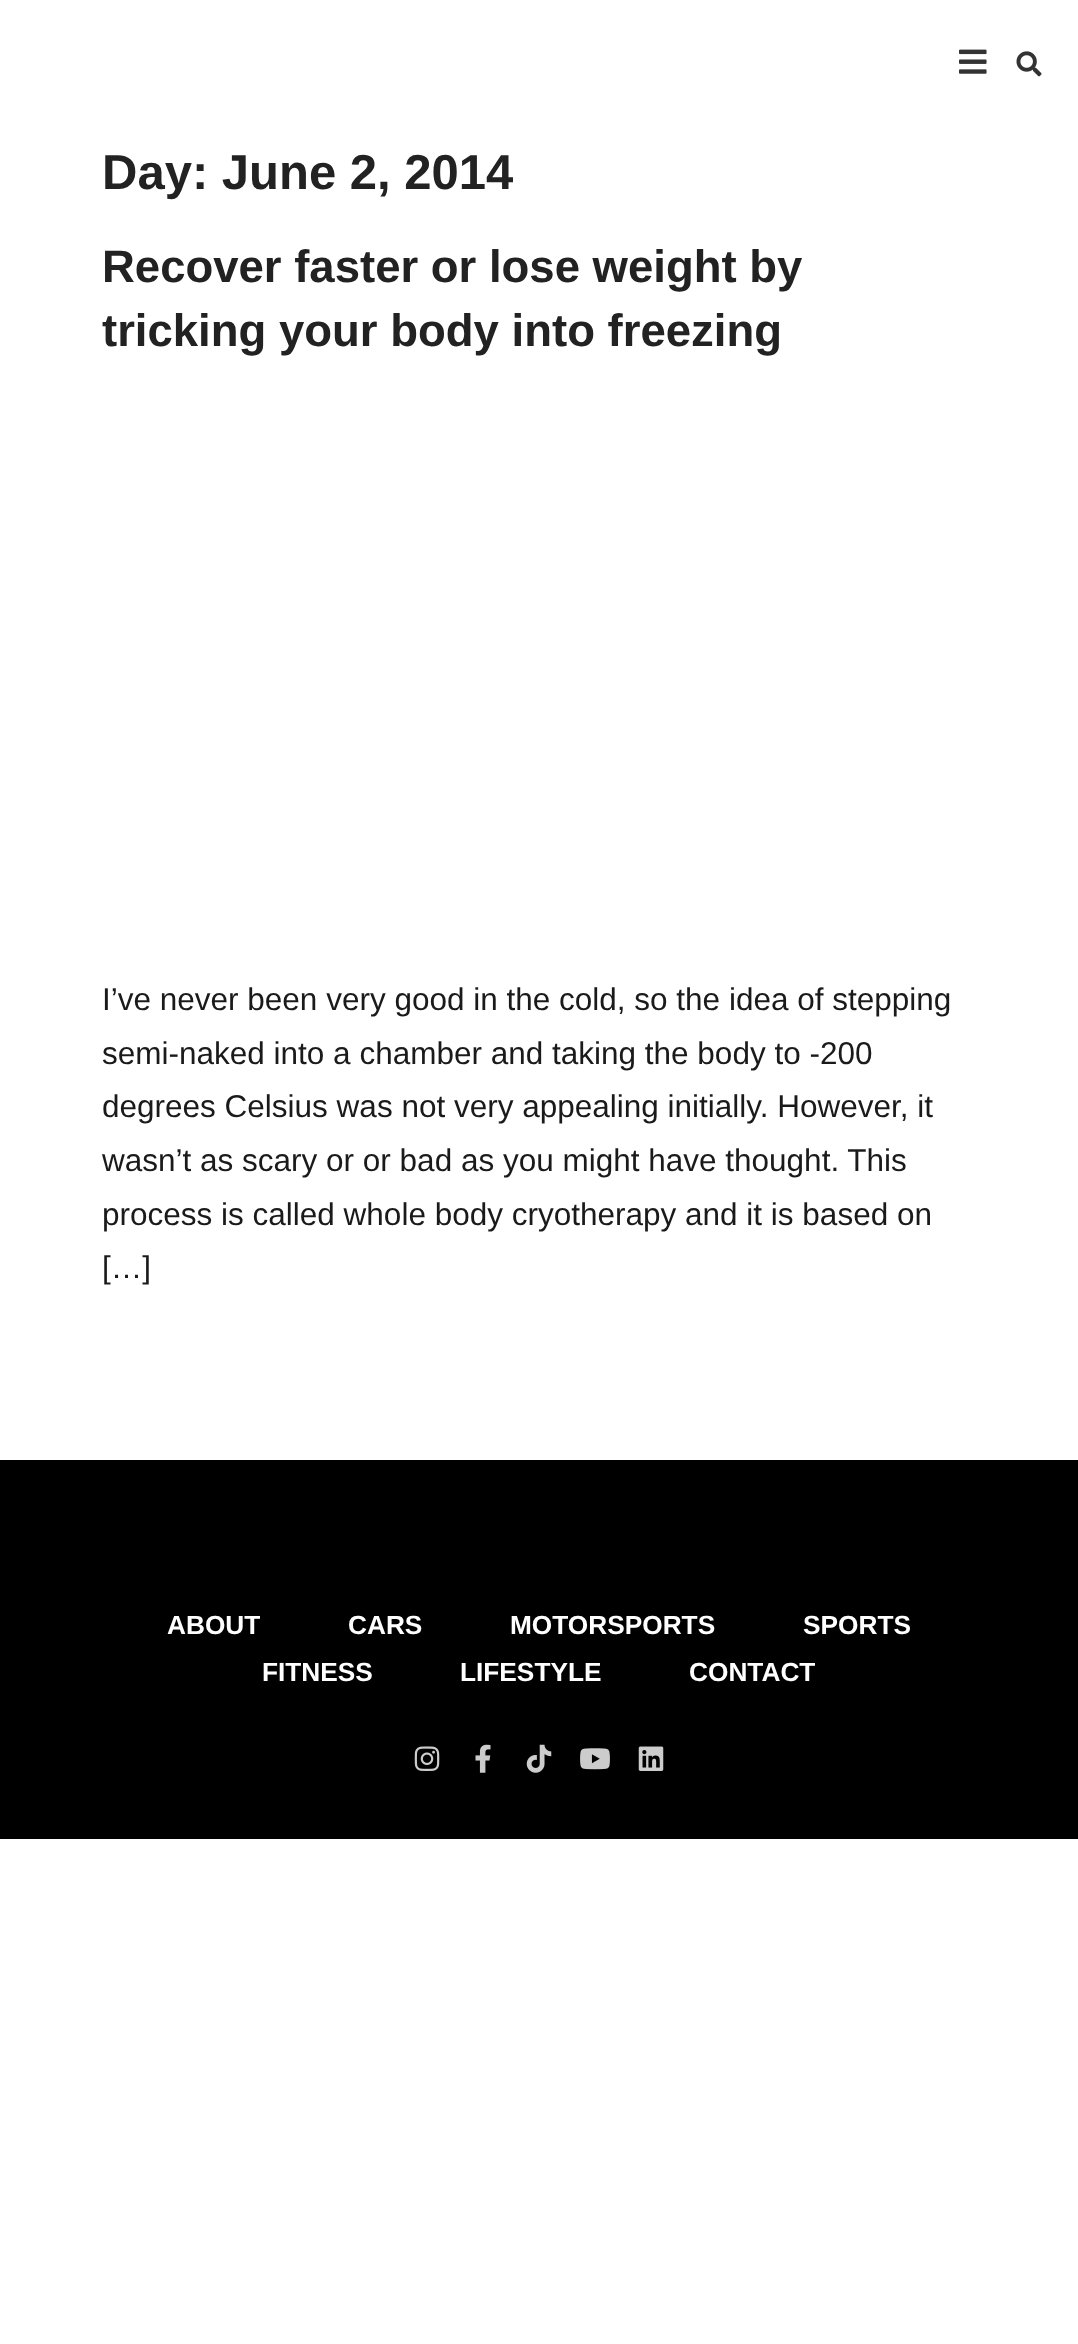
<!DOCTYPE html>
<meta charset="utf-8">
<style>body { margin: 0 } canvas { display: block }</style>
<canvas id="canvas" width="1078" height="2344"></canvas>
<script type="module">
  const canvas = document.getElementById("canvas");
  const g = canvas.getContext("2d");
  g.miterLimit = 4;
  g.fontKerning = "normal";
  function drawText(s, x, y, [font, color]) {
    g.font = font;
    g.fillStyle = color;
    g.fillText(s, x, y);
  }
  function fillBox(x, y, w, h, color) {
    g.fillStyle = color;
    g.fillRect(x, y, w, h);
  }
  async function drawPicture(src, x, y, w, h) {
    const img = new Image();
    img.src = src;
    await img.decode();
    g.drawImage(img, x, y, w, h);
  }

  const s1 = ["bold 49px Liberation Sans", "#222222"];
  const s2 = ["bold 45.5px Liberation Sans", "#222222"];
  const s3 = ["31.5px Liberation Sans", "#1A1A1A"];
  const s4 = ["bold 26.25px Liberation Sans", "#FFFFFF"];

  fillBox(0, 0, 1078, 2344, "#FFFFFF");
  await drawPicture("pic1.png", 959, 49, 28, 25);
  await drawPicture("pic2.png", 1016, 51, 26, 26);
  drawText("Day: June 2, 2014", 102, 189, s1);
  drawText("Recover faster or lose weight by", 102, 282, s2);
  drawText("tricking your body into freezing", 102, 346, s2);
  drawText("I’ve never been very good in the cold, so the idea of stepping", 102, 1010, s3);
  drawText("semi-naked into a chamber and taking the body to -200", 102, 1064, s3);
  drawText("degrees Celsius was not very appealing initially. However, it", 102, 1117, s3);
  drawText("wasn’t as scary or or bad as you might have thought. This", 102, 1171, s3);
  drawText("process is called whole body cryotherapy and it is based on", 102, 1225, s3);
  drawText("[…]", 102, 1278, s3);
  fillBox(0, 1460, 1078, 379, "#000000");
  drawText("ABOUT", 167, 1634, s4);
  drawText("CARS", 348, 1634, s4);
  drawText("MOTORSPORTS", 510, 1634, s4);
  drawText("SPORTS", 803, 1634, s4);
  drawText("FITNESS", 262, 1681, s4);
  drawText("LIFESTYLE", 460, 1681, s4);
  drawText("CONTACT", 689, 1681, s4);
  await drawPicture("pic3.png", 414, 1746, 26, 25);
  await drawPicture("pic4.png", 475, 1744, 16, 29);
  await drawPicture("pic5.png", 526, 1744, 26, 29);
  await drawPicture("pic6.png", 580, 1748, 30, 22);
  await drawPicture("pic7.png", 638, 1746, 26, 25);
</script>
